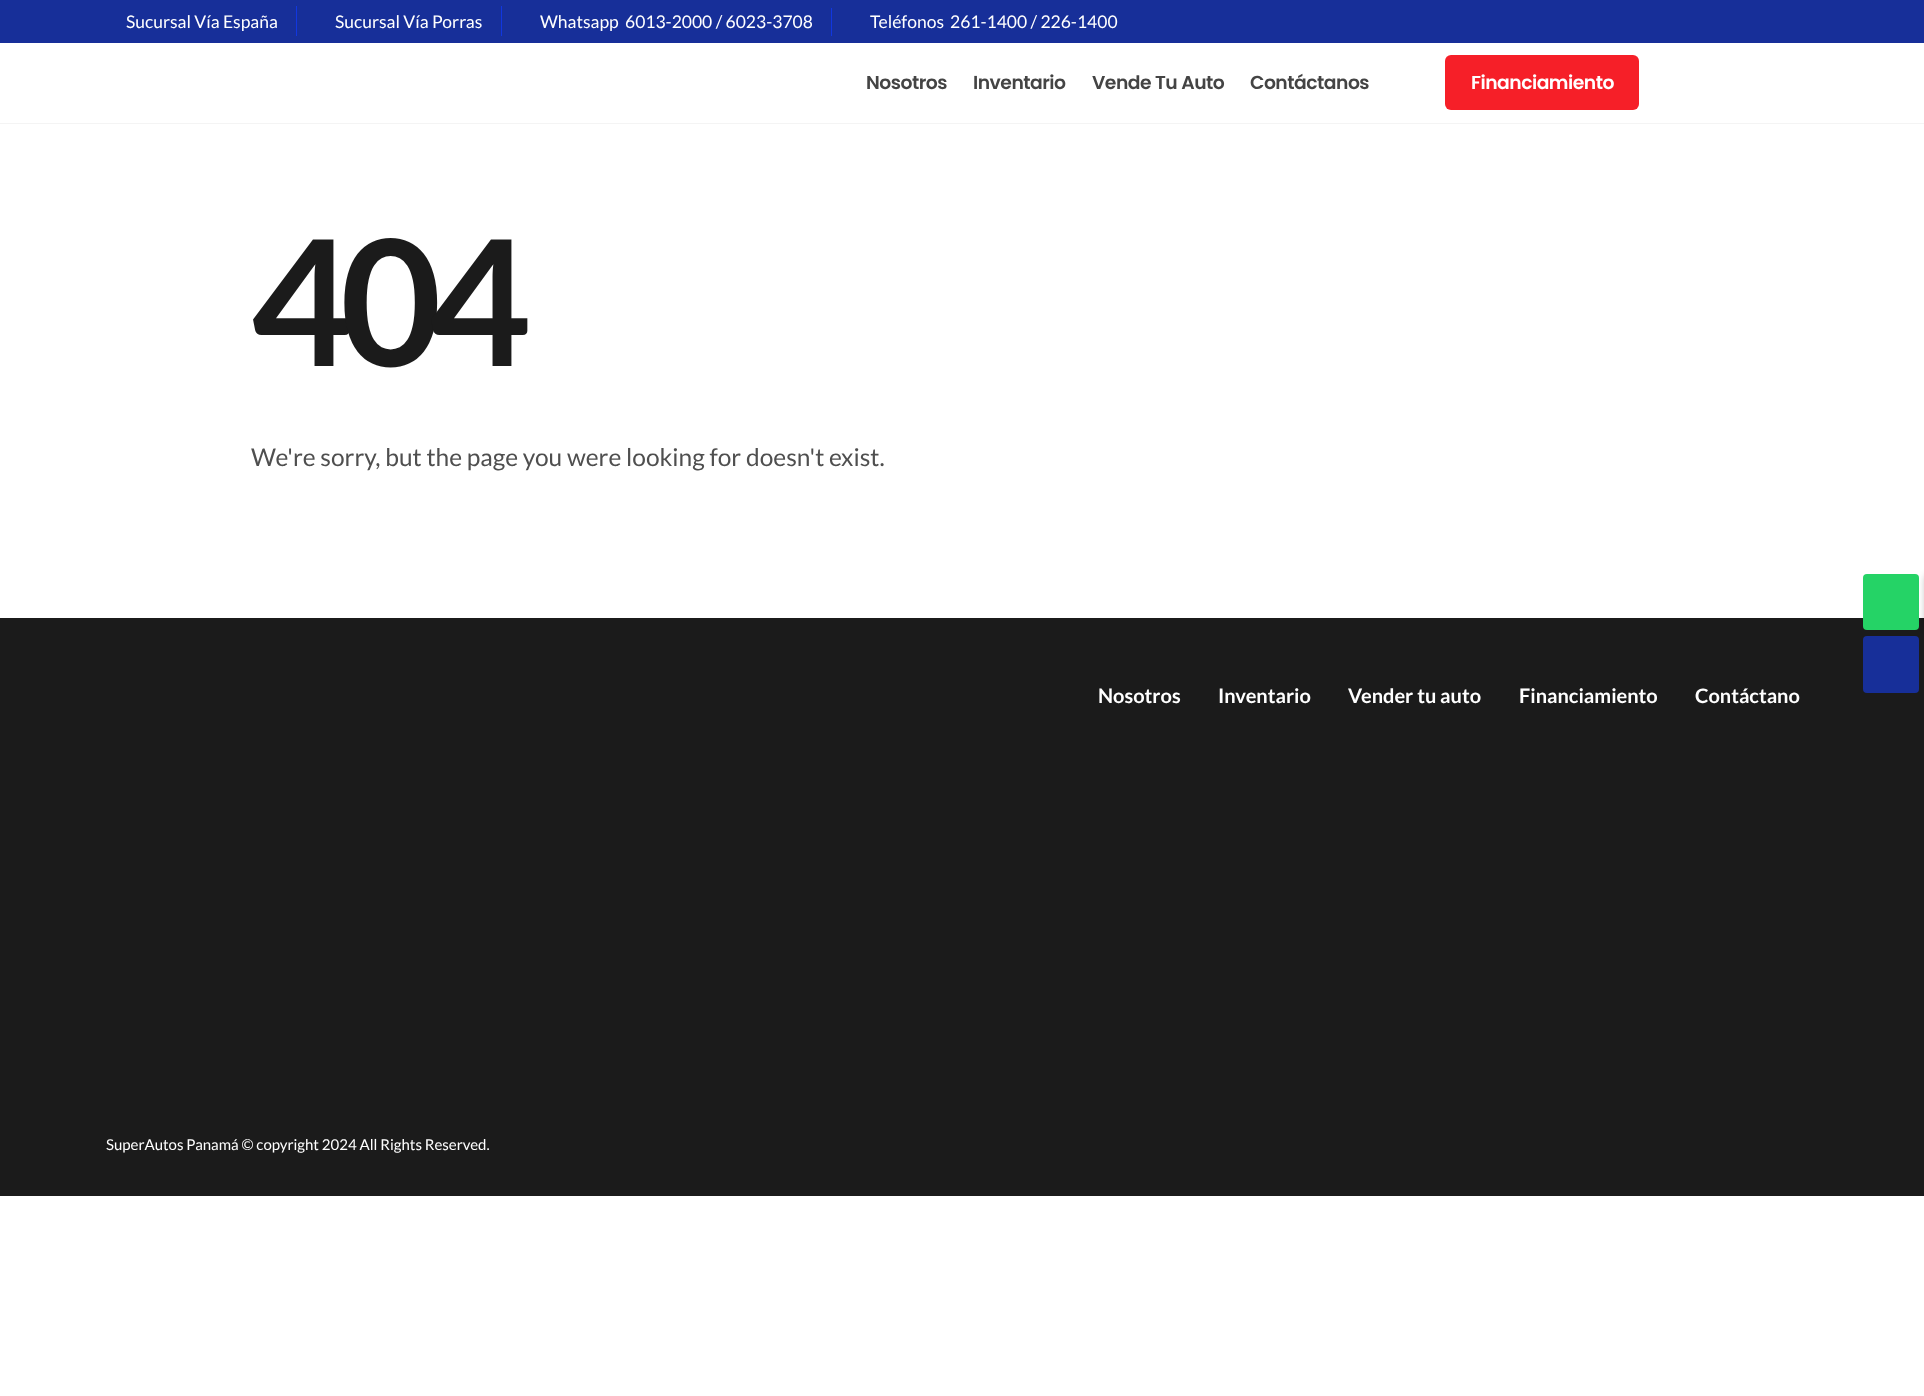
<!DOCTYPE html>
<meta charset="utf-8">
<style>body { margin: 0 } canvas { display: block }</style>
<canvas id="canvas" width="1924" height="1396"></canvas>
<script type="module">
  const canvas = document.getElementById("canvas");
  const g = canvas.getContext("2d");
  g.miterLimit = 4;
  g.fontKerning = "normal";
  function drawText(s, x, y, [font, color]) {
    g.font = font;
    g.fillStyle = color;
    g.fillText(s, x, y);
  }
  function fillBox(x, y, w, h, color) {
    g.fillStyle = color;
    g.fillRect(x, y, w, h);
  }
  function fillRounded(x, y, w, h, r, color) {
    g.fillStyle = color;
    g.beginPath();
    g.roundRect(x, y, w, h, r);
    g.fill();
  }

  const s1 = ["17.5px Lato", "#FFFFFF"];
  const s2 = ["600 18.75px Poppins", "#444444"];
  const s3 = ["600 18.75px Poppins", "#FFFFFF"];
  const s4 = ["bold 175px Lato", "#1B1B1B"];
  const s5 = ["24.5px Lato", "#4F4F4F"];
  const s6 = ["bold 20px Lato", "#FFFFFF"];
  const s7 = ["15px Lato", "#FFFFFF"];

  fillBox(0, 0, 1924, 1396, "#FFFFFF");
  fillBox(0, 123, 1924, 1, "#F4F4F4");
  fillBox(0, 0, 1924, 43, "#172F99");
  fillBox(296, 6, 1, 30, "#1137E0");
  drawText("Sucursal Vía España", 126, 28, s1);
  fillBox(501, 6, 1, 30, "#1137E0");
  drawText("Sucursal Vía Porras", 335, 28, s1);
  fillBox(831, 8, 1, 28, "#1137E0");
  drawText("Whatsapp", 540, 28, s1);
  drawText("6013-2000 / 6023-3708", 625, 28, s1);
  drawText("Teléfonos", 870, 28, s1);
  drawText("261-1400 / 226-1400", 950, 28, s1);
  g.letterSpacing = "-0.5px";
  drawText("Nosotros", 866, 89, s2);
  drawText("Inventario", 973, 89, s2);
  drawText("Vende Tu Auto", 1092, 89, s2);
  drawText("Contáctanos", 1250, 89, s2);
  fillRounded(1445, 55, 194, 55, 6, "#F61F28");
  drawText("Financiamiento", 1471, 89, s3);
  g.letterSpacing = "-12.5px";
  drawText("404", 251, 366, s4);
  g.letterSpacing = "0px";
  drawText("We're sorry, but the page you were looking for doesn't exist.", 251, 466, s5);
  fillBox(0, 618, 1924, 578, "#1B1B1B");
  fillRounded(1863, 574, 56, 56, 4, "#25D366");
  g.fillStyle = "rgba(0, 0, 0, 0.2)";
  g.filter = "blur(3px)";
  g.beginPath();
  g.roundRect(1924, 573, 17, 58, 8);
  g.fill();
  g.filter = "none";
  fillRounded(1863, 636, 56, 57, 4, "#172F99");
  drawText("Nosotros", 1098, 703, s6);
  drawText("Inventario", 1218, 703, s6);
  drawText("Vender tu auto", 1348, 703, s6);
  drawText("Financiamiento", 1519, 703, s6);
  drawText("Contáctano", 1695, 703, s6);
  drawText("SuperAutos Panamá © copyright 2024 All Rights Reserved.", 106, 1150, s7);
</script>
